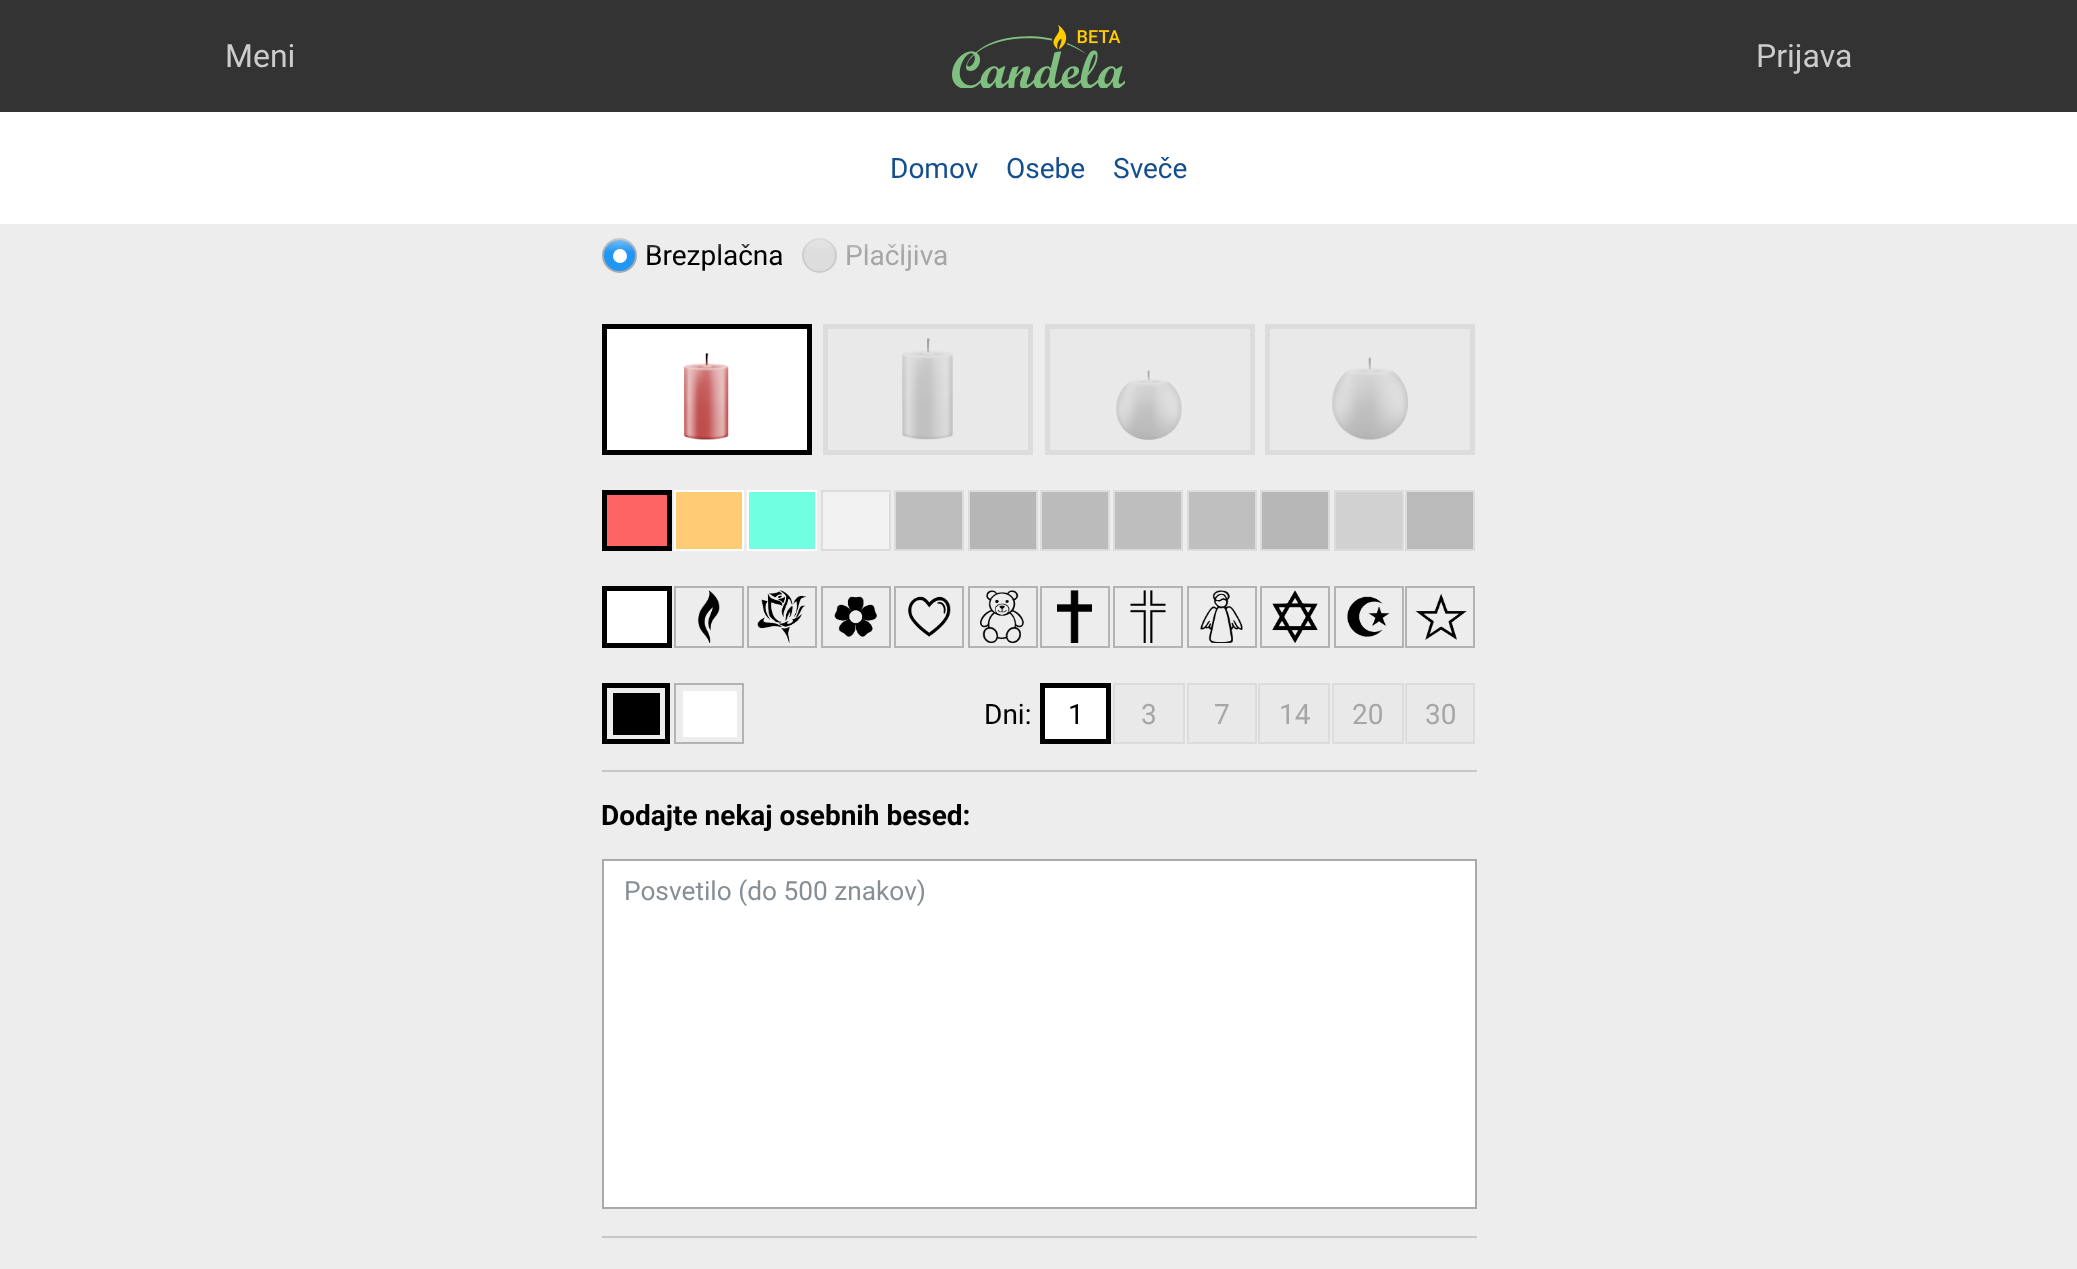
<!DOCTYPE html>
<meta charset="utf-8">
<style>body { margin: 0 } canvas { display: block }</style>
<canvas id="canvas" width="2077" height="1269"></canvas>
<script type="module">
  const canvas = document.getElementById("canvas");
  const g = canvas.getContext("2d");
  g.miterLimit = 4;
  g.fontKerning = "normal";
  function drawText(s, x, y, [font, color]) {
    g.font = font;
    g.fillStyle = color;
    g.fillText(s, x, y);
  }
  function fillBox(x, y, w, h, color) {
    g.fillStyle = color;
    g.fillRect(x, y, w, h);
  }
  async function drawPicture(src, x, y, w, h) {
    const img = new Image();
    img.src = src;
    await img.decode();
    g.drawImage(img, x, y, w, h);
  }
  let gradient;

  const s1 = ["32px Roboto", "#CCCCCC"];
  const s2 = ["28px Roboto", "#154E8E"];
  const s3 = ["28px Roboto", "#000000"];
  const s4 = ["28px Roboto", "#A6A6A6"];
  const s5 = ["bold 28px Roboto", "#000000"];
  const s6 = ["26.25px Roboto", "#868E96"];

  fillBox(0, 0, 2077, 1269, "#EDEDED");
  fillBox(0, 0, 2077, 112, "#333333");
  drawText("Meni", 225, 67, s1);
  await drawPicture("pic1.png", 952, 25, 173, 63);
  drawText("Prijava", 1756, 67, s1);
  fillBox(0, 112, 2077, 112, "#FFFFFF");
  drawText("Domov", 890, 178, s2);
  drawText("Osebe", 1006, 178, s2);
  drawText("Sveče", 1113, 178, s2);
  g.fillStyle = "#2196F3";
  g.beginPath();
  g.arc(619.5, 255.5, 16.5, 0, Math.PI * 2);
  g.fill();
  g.strokeStyle = "#AAAAAA";
  g.lineWidth = 2;
  g.stroke();
  g.fillStyle = "#FFFFFF";
  g.beginPath();
  g.arc(620, 256, 7, 0, Math.PI * 2);
  g.fill();
  drawText("Brezplačna", 645, 265, s3);
  g.fillStyle = "#DDDDDD";
  g.beginPath();
  g.arc(819.5, 255.5, 16.5, 0, Math.PI * 2);
  g.fill();
  g.strokeStyle = "#CCCCCC";
  g.stroke();
  drawText("Plačljiva", 845, 265, s4);
  gradient = g.createLinearGradient(1039, 224, 1039, 252);
  gradient.addColorStop(0, "#EDEDED");
  gradient.addColorStop(1, "rgba(237, 237, 237, 0)");
  g.fillStyle = gradient;
  g.fillRect(602, 238, 341, 13);
  g.fillStyle = "#FFFFFF";
  g.beginPath();
  g.rect(604.5, 326.5, 205, 126);
  g.fill();
  g.strokeStyle = "#000000";
  g.lineWidth = 5;
  g.stroke();
  await drawPicture("pic2.png", 684, 353, 45, 87);
  g.fillStyle = "#E9E9E9";
  g.beginPath();
  g.rect(825.5, 326.5, 205, 126);
  g.fill();
  g.strokeStyle = "#DCDCDC";
  g.stroke();
  await drawPicture("pic3.png", 902, 338, 51, 102);
  g.beginPath();
  g.rect(1047.5, 326.5, 205, 126);
  g.fill();
  g.stroke();
  await drawPicture("pic4.png", 1116, 370, 66, 70);
  g.beginPath();
  g.rect(1267.5, 326.5, 205, 126);
  g.fill();
  g.stroke();
  await drawPicture("pic5.png", 1332, 357, 76, 83);
  g.fillStyle = "#FF6464";
  g.beginPath();
  g.rect(604.5, 492.5, 65, 56);
  g.fill();
  g.strokeStyle = "#000000";
  g.stroke();
  g.fillStyle = "#FFCC75";
  g.beginPath();
  g.rect(675, 491, 68, 59);
  g.fill();
  g.strokeStyle = "#FFFFFF";
  g.lineWidth = 2;
  g.stroke();
  g.fillStyle = "#70FFE0";
  g.beginPath();
  g.rect(748, 491, 68, 59);
  g.fill();
  g.stroke();
  g.fillStyle = "#F2F2F2";
  g.beginPath();
  g.rect(822, 491, 68, 59);
  g.fill();
  g.strokeStyle = "#DCDCDC";
  g.stroke();
  g.fillStyle = "#BDBDBD";
  g.beginPath();
  g.rect(895, 491, 68, 59);
  g.fill();
  g.stroke();
  g.fillStyle = "#B6B6B6";
  g.beginPath();
  g.rect(969, 491, 68, 59);
  g.fill();
  g.stroke();
  g.fillStyle = "#BBBBBB";
  g.beginPath();
  g.rect(1041, 491, 68, 59);
  g.fill();
  g.stroke();
  g.fillStyle = "#BEBEBE";
  g.beginPath();
  g.rect(1114, 491, 68, 59);
  g.fill();
  g.stroke();
  g.fillStyle = "#BFBFBF";
  g.beginPath();
  g.rect(1188, 491, 68, 59);
  g.fill();
  g.stroke();
  g.fillStyle = "#B7B7B7";
  g.beginPath();
  g.rect(1261, 491, 68, 59);
  g.fill();
  g.stroke();
  g.fillStyle = "#D1D1D1";
  g.beginPath();
  g.rect(1335, 491, 68, 59);
  g.fill();
  g.stroke();
  g.fillStyle = "#BABABA";
  g.beginPath();
  g.rect(1406, 491, 68, 59);
  g.fill();
  g.stroke();
  g.fillStyle = "#FFFFFF";
  g.beginPath();
  g.rect(604.5, 588.5, 65, 57);
  g.fill();
  g.strokeStyle = "#000000";
  g.lineWidth = 5;
  g.stroke();
  g.strokeStyle = "#B3B3B3";
  g.lineWidth = 2;
  g.strokeRect(675, 587, 68, 60);
  await drawPicture("pic6.png", 698, 590, 22, 53);
  g.strokeRect(748, 587, 68, 60);
  await drawPicture("pic7.png", 757, 590, 50, 53);
  g.strokeRect(822, 587, 68, 60);
  await drawPicture("pic8.png", 834, 596, 43, 41);
  g.strokeRect(895, 587, 68, 60);
  await drawPicture("pic9.png", 908, 596, 43, 41);
  g.strokeRect(969, 587, 68, 60);
  await drawPicture("pic10.png", 980, 590, 44, 53);
  g.strokeRect(1041, 587, 68, 60);
  await drawPicture("pic11.png", 1057, 590, 35, 53);
  g.strokeRect(1114, 587, 68, 60);
  await drawPicture("pic12.png", 1130, 590, 36, 53);
  g.strokeRect(1188, 587, 68, 60);
  await drawPicture("pic13.png", 1200, 590, 43, 53);
  g.strokeRect(1261, 587, 68, 60);
  await drawPicture("pic14.png", 1272, 590, 46, 53);
  g.strokeRect(1335, 587, 68, 60);
  await drawPicture("pic15.png", 1347, 596, 43, 41);
  g.strokeRect(1406, 587, 68, 60);
  await drawPicture("pic16.png", 1415, 593, 52, 47);
  g.strokeStyle = "#000000";
  g.lineWidth = 5;
  g.strokeRect(604.5, 685.5, 63, 56);
  fillBox(613, 693, 47, 42, "#000000");
  g.strokeStyle = "#B3B3B3";
  g.lineWidth = 2;
  g.strokeRect(675, 684, 68, 59);
  fillBox(683, 691, 54, 46, "#FFFFFF");
  drawText("Dni:", 984, 724, s3);
  g.fillStyle = "#FFFFFF";
  g.beginPath();
  g.rect(1042.5, 685.5, 66, 56);
  g.fill();
  g.strokeStyle = "#000000";
  g.lineWidth = 5;
  g.stroke();
  drawText("1", 1068, 724, s3);
  g.fillStyle = "#E9E9E9";
  g.beginPath();
  g.rect(1114, 684, 70, 59);
  g.fill();
  g.strokeStyle = "#DCDCDC";
  g.lineWidth = 2;
  g.stroke();
  drawText("3", 1141, 724, s4);
  g.fillStyle = "#E9E9E9";
  g.beginPath();
  g.rect(1188, 684, 68, 59);
  g.fill();
  g.stroke();
  drawText("7", 1214, 724, s4);
  g.fillStyle = "#E9E9E9";
  g.beginPath();
  g.rect(1259, 684, 70, 59);
  g.fill();
  g.stroke();
  drawText("14", 1279, 724, s4);
  g.fillStyle = "#E9E9E9";
  g.beginPath();
  g.rect(1333, 684, 70, 59);
  g.fill();
  g.stroke();
  drawText("20", 1352, 724, s4);
  g.fillStyle = "#E9E9E9";
  g.beginPath();
  g.rect(1406, 684, 68, 59);
  g.fill();
  g.stroke();
  drawText("30", 1425, 724, s4);
  fillBox(602, 770, 875, 2, "#C7C8C6");
  drawText("Dodajte nekaj osebnih besed:", 601, 825, s5);
  g.fillStyle = "#FFFFFF";
  g.beginPath();
  g.rect(603, 860, 873, 348);
  g.fill();
  g.strokeStyle = "#AAAAAA";
  g.stroke();
  drawText("Posvetilo (do 500 znakov)", 624, 900, s6);
  fillBox(602, 1236, 875, 2, "#C7C8C6");
</script>
